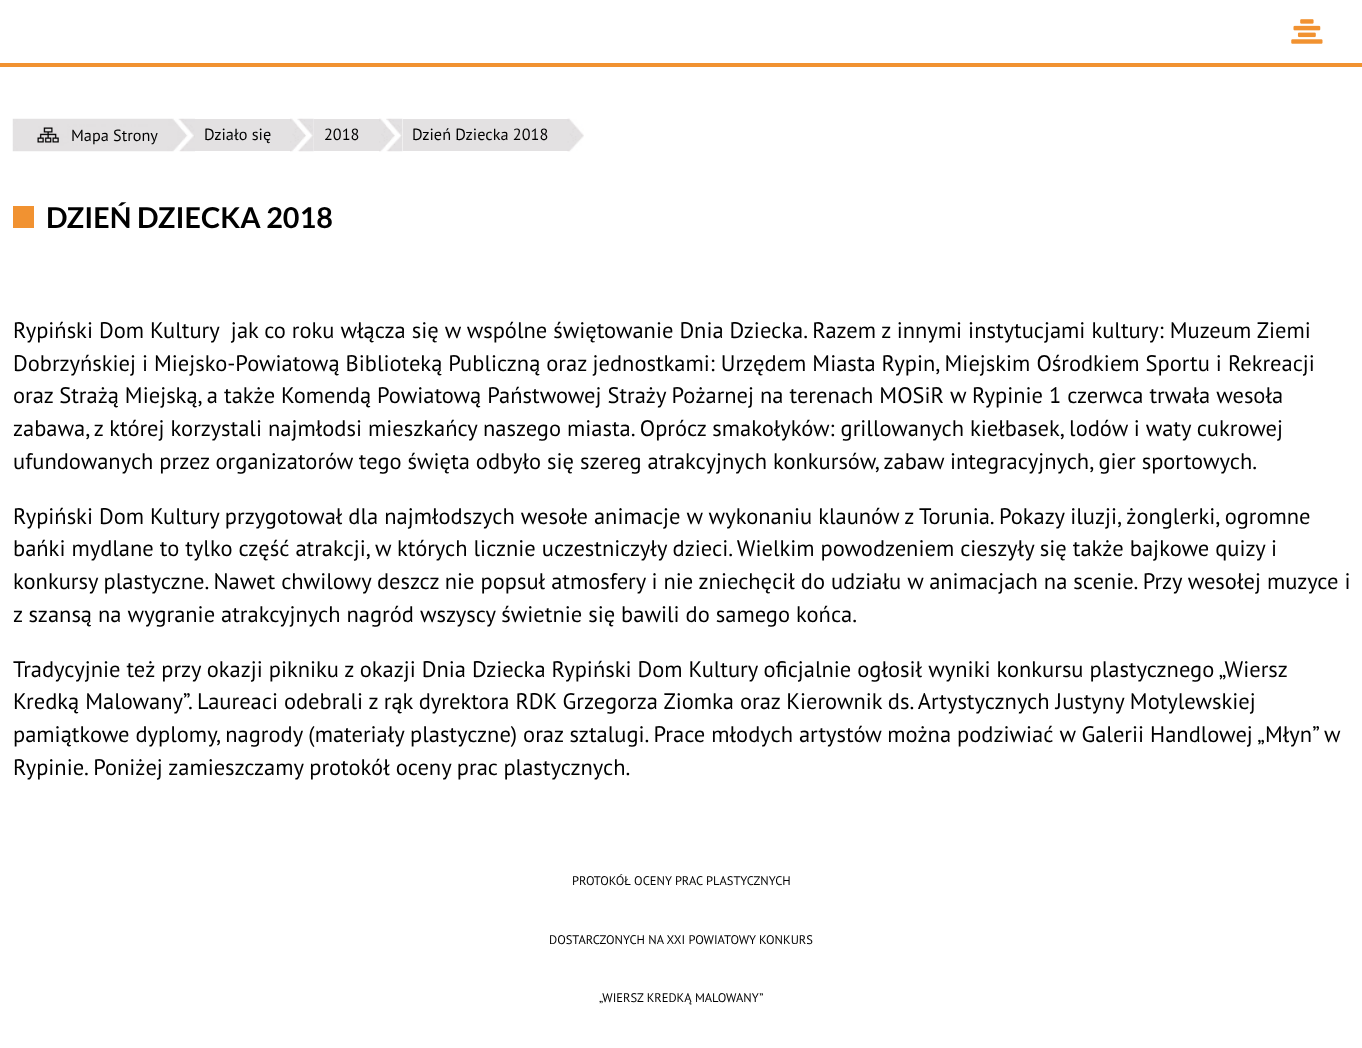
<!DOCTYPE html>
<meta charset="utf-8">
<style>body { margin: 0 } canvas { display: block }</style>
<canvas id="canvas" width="1362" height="1048"></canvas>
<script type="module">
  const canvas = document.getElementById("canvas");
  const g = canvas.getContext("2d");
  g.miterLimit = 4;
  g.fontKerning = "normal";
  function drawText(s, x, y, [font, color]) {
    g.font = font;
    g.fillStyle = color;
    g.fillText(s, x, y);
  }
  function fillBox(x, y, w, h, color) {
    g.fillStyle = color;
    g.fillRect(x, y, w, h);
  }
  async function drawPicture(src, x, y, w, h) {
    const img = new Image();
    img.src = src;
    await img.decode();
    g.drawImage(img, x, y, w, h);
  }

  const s1 = ["16.25px PT Sans", "#000000"];
  const s2 = ["bold 28.75px Lato", "#000000"];
  const s3 = ["22.5px PT Sans", "#000000"];
  const s4 = ["12.5px PT Sans", "#000000"];

  fillBox(0, 0, 1362, 1048, "#FFFFFF");
  fillBox(0, 63, 1362, 4, "#F19231");
  await drawPicture("pic1.png", 1291, 19, 32, 25);
  await drawPicture("pic2.png", 12, 118, 182, 34);
  drawText("Mapa Strony", 71, 141, s1);
  fillBox(195, 119, 95, 32, "#E3E1E2");
  await drawPicture("pic3.png", 178, 118, 17, 34);
  drawText("Działo się", 204, 140, s1);
  await drawPicture("pic4.png", 290, 118, 17, 34);
  fillBox(314, 119, 65, 32, "#E3E1E2");
  await drawPicture("pic5.png", 297, 118, 17, 34);
  drawText("2018", 324, 140, s1);
  await drawPicture("pic6.png", 379, 118, 16, 34);
  fillBox(403, 119, 165, 32, "#E3E1E2");
  await drawPicture("pic7.png", 386, 118, 17, 34);
  drawText("Dzień Dziecka 2018", 412, 140, s1);
  await drawPicture("pic8.png", 567, 118, 17, 34);
  fillBox(13, 206, 21, 22, "#F19231");
  drawText("DZIEŃ DZIECKA 2018", 46, 228, s2);
  drawText("Rypiński Dom Kultury  jak co roku włącza się w wspólne świętowanie Dnia Dziecka. Razem z innymi instytucjami kultury: Muzeum Ziemi", 13, 338, s3);
  drawText("Dobrzyńskiej i Miejsko-Powiatową Biblioteką Publiczną oraz jednostkami: Urzędem Miasta Rypin, Miejskim Ośrodkiem Sportu i Rekreacji", 13, 371, s3);
  drawText("oraz Strażą Miejską, a także Komendą Powiatową Państwowej Straży Pożarnej na terenach MOSiR w Rypinie 1 czerwca trwała wesoła", 13, 403, s3);
  drawText("zabawa, z której korzystali najmłodsi mieszkańcy naszego miasta. Oprócz smakołyków: grillowanych kiełbasek, lodów i waty cukrowej", 13, 436, s3);
  drawText("ufundowanych przez organizatorów tego święta odbyło się szereg atrakcyjnych konkursów, zabaw integracyjnych, gier sportowych.", 13, 469, s3);
  drawText("Rypiński Dom Kultury przygotował dla najmłodszych wesołe animacje w wykonaniu klaunów z Torunia. Pokazy iluzji, żonglerki, ogromne", 13, 524, s3);
  drawText("bańki mydlane to tylko część atrakcji, w których licznie uczestniczyły dzieci. Wielkim powodzeniem cieszyły się także bajkowe quizy i", 13, 556, s3);
  drawText("konkursy plastyczne. Nawet chwilowy deszcz nie popsuł atmosfery i nie zniechęcił do udziału w animacjach na scenie. Przy wesołej muzyce i", 13, 589, s3);
  drawText("z szansą na wygranie atrakcyjnych nagród wszyscy świetnie się bawili do samego końca.", 13, 622, s3);
  drawText("Tradycyjnie też przy okazji pikniku z okazji Dnia Dziecka Rypiński Dom Kultury oficjalnie ogłosił wyniki konkursu plastycznego „Wiersz", 13, 677, s3);
  drawText("Kredką Malowany”. Laureaci odebrali z rąk dyrektora RDK Grzegorza Ziomka oraz Kierownik ds. Artystycznych Justyny Motylewskiej", 13, 709, s3);
  drawText("pamiątkowe dyplomy, nagrody (materiały plastyczne) oraz sztalugi. Prace młodych artystów można podziwiać w Galerii Handlowej „Młyn” w", 13, 742, s3);
  drawText("Rypinie. Poniżej zamieszczamy protokół oceny prac plastycznych.", 13, 775, s3);
  drawText("PROTOKÓŁ OCENY PRAC PLASTYCZNYCH", 572, 885, s4);
  drawText("DOSTARCZONYCH NA XXI POWIATOWY KONKURS", 549, 944, s4);
  drawText("„WIERSZ KREDKĄ MALOWANY”", 599, 1002, s4);
</script>
